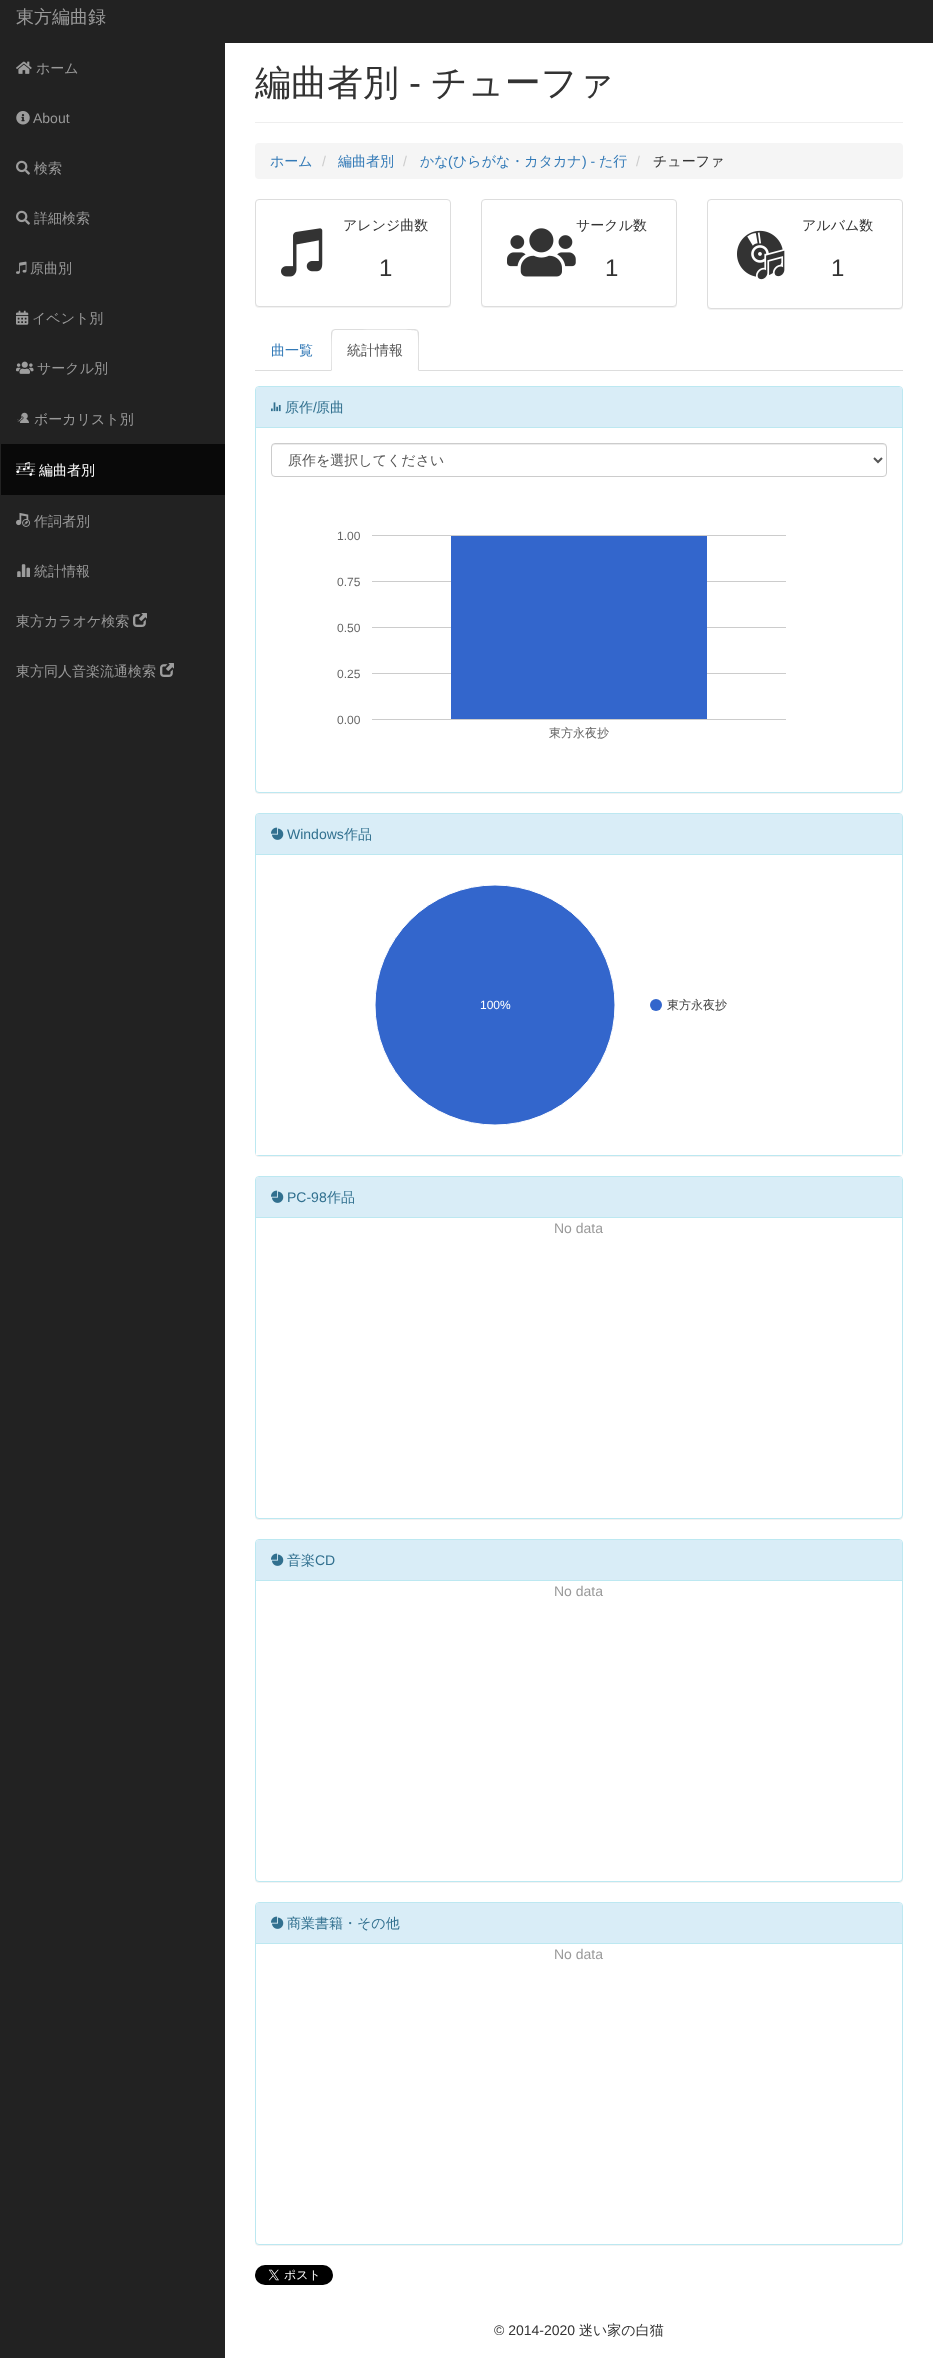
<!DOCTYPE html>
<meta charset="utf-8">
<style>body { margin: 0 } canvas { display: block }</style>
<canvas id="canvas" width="933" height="2358"></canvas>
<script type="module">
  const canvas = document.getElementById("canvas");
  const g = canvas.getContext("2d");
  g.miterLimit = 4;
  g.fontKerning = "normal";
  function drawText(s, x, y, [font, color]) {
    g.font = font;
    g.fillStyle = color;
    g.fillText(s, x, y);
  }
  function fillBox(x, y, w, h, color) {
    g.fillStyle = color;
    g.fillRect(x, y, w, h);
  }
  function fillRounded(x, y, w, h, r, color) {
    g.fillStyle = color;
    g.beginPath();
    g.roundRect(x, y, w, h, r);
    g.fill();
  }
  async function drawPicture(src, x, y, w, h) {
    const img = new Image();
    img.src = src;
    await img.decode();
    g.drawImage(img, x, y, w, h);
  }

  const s1 = ["500 18px WenQuanYi Zen Hei", "#999999"];
  const s2 = ["500 14px WenQuanYi Zen Hei", "#999999"];
  const s3 = ["14px Liberation Sans", "#999999"];
  const s4 = ["500 14px WenQuanYi Zen Hei", "#FFFFFF"];
  const s5 = ["500 36px WenQuanYi Zen Hei", "#333333"];
  const s6 = ["36px Liberation Sans", "#333333"];
  const s7 = ["500 14px WenQuanYi Zen Hei", "#337AB7"];
  const s8 = ["14px Liberation Sans", "#CCCCCC"];
  const s9 = ["14px Liberation Sans", "#337AB7"];
  const s10 = ["500 14px WenQuanYi Zen Hei", "#333333"];
  const s11 = ["24px Liberation Sans", "#333333"];
  const s12 = ["500 14px WenQuanYi Zen Hei", "#555555"];
  const s13 = ["500 14px WenQuanYi Zen Hei", "#31708F"];
  const s14 = ["14px Liberation Sans", "#31708F"];
  const s15 = ["12px Liberation Sans", "#666666"];
  const s16 = ["500 12px WenQuanYi Zen Hei", "#666666"];
  const s17 = ["12px Liberation Sans", "#FFFFFF"];
  const s18 = ["500 12px WenQuanYi Zen Hei", "#444444"];
  const s19 = ["14px Liberation Sans", "#333333"];

  fillBox(0, 0, 933, 2358, "#222222");
  drawText("東方編曲録", 16, 23, s1);
  await drawPicture("pic1.png", 16, 61, 16, 13);
  drawText("ホーム", 36, 73, s2);
  await drawPicture("pic2.png", 16, 111, 14, 14);
  drawText("About", 33, 123, s3);
  await drawPicture("pic3.png", 16, 160, 14, 15);
  drawText("検索", 34, 173, s2);
  await drawPicture("pic3.png", 16, 210, 14, 15);
  drawText("詳細検索", 34, 223, s2);
  await drawPicture("pic4.png", 16, 261, 11, 13);
  drawText("原曲別", 30, 273, s2);
  await drawPicture("pic5.png", 16, 310, 13, 15);
  drawText("イベント別", 32, 323, s2);
  await drawPicture("pic6.png", 16, 361, 18, 13);
  drawText("サークル別", 37, 373, s2);
  await drawPicture("pic7.png", 17, 412, 12, 11);
  drawText("ボーカリスト別", 34, 424, s2);
  fillBox(1, 444, 224, 51, "#090909");
  await drawPicture("pic8.png", 16, 461, 20, 15);
  drawText("編曲者別", 39, 475, s4);
  await drawPicture("pic9.png", 16, 512, 14, 15);
  drawText("作詞者別", 34, 526, s2);
  await drawPicture("pic10.png", 17, 564, 13, 13);
  drawText("統計情報", 34, 576, s2);
  drawText("東方カラオケ検索", 16, 626, s2);
  await drawPicture("pic11.png", 133, 613, 14, 14);
  drawText("東方同人音楽流通検索", 16, 676, s2);
  await drawPicture("pic11.png", 160, 663, 14, 14);
  fillBox(225, 43, 708, 2315, "#FFFFFF");
  fillBox(255, 122, 648, 1, "#EEEEEE");
  drawText("編曲者別", 255, 95, s5);
  drawText("-", 409, 95, s6);
  drawText("チューファ", 431, 95, s5);
  fillRounded(255, 143, 648, 36, 4, "#F5F5F5");
  drawText("ホーム", 270, 166, s7);
  drawText("/", 322, 166, s8);
  drawText("編曲者別", 338, 166, s7);
  drawText("/", 403, 166, s8);
  drawText("かな", 420, 166, s7);
  drawText("(", 448, 166, s9);
  drawText("ひらがな・カタカナ", 453, 166, s7);
  drawText(") -", 582, 166, s9);
  drawText("た行", 599, 166, s7);
  drawText("/", 636, 166, s8);
  drawText("チューファ", 653, 166, s10);
  g.fillStyle = "rgba(0, 0, 0, 0.05)";
  g.filter = "blur(0.5px)";
  g.beginPath();
  g.roundRect(255, 200, 196, 108, 4);
  g.fill();
  g.filter = "none";
  g.fillStyle = "#FFFFFF";
  g.beginPath();
  g.roundRect(255.5, 199.5, 195, 107, 3.5);
  g.fill();
  g.strokeStyle = "#DDDDDD";
  g.stroke();
  await drawPicture("pic12.png", 281, 228, 42, 49);
  drawText("アレンジ曲数", 343, 230, s10);
  drawText("1", 379, 276, s11);
  g.fillStyle = "rgba(0, 0, 0, 0.05)";
  g.filter = "blur(0.5px)";
  g.beginPath();
  g.roundRect(481, 200, 196, 108, 4);
  g.fill();
  g.filter = "none";
  g.fillStyle = "#FFFFFF";
  g.beginPath();
  g.roundRect(481.5, 199.5, 195, 107, 3.5);
  g.fill();
  g.stroke();
  await drawPicture("pic13.png", 507, 228, 69, 49);
  drawText("サークル数", 576, 230, s10);
  drawText("1", 605, 276, s11);
  g.fillStyle = "rgba(0, 0, 0, 0.05)";
  g.filter = "blur(0.5px)";
  g.beginPath();
  g.roundRect(707, 200, 196, 110, 4);
  g.fill();
  g.filter = "none";
  g.fillStyle = "#FFFFFF";
  g.beginPath();
  g.roundRect(707.5, 199.5, 195, 109, 3.5);
  g.fill();
  g.stroke();
  await drawPicture("pic14.png", 737, 230, 48, 50);
  drawText("アルバム数", 802, 230, s10);
  drawText("1", 831, 276, s11);
  fillBox(255, 370, 648, 1, "#DDDDDD");
  drawText("曲一覧", 271, 355, s7);
  g.fillStyle = "#FFFFFF";
  g.beginPath();
  g.roundRect(331, 329, 88, 42, [4, 4, 0, 0]);
  g.fill();
  g.fillStyle = "#DDDDDD";
  g.beginPath();
  g.moveTo(335, 329);
  g.lineTo(332, 330);
  g.lineTo(333, 331);
  g.lineTo(335, 330);
  g.lineTo(348, 330);
  g.bezierCurveTo(356, 330, 415, 329, 417, 331);
  g.lineTo(418, 330);
  g.lineTo(415, 329);
  g.closePath();
  g.fill();
  g.beginPath();
  g.moveTo(419, 371);
  g.lineTo(419, 333);
  g.bezierCurveTo(419, 332, 418, 331, 418, 330);
  g.lineTo(417, 331);
  g.bezierCurveTo(419, 333, 418, 365, 418, 370);
  g.closePath();
  g.fill();
  g.beginPath();
  g.moveTo(331, 371);
  g.lineTo(332, 370);
  g.bezierCurveTo(332, 365, 331, 333, 333, 331);
  g.lineTo(332, 330);
  g.lineTo(331, 333);
  g.closePath();
  g.fill();
  drawText("統計情報", 347, 355, s12);
  g.fillStyle = "rgba(0, 0, 0, 0.05)";
  g.filter = "blur(0.5px)";
  g.beginPath();
  g.roundRect(255, 387, 648, 407, 4);
  g.fill();
  g.filter = "none";
  g.fillStyle = "#FFFFFF";
  g.beginPath();
  g.roundRect(255.5, 386.5, 647, 406, 3.5);
  g.fill();
  g.strokeStyle = "#BCE8F1";
  g.stroke();
  g.fillStyle = "#D9EDF7";
  g.beginPath();
  g.roundRect(256, 387, 646, 41, [3, 3, 0, 0]);
  g.fill();
  fillBox(256, 427, 646, 1, "#BCE8F1");
  await drawPicture("pic15.png", 271, 402, 10, 10);
  drawText("原作", 285, 412, s13);
  drawText("/", 313, 412, s14);
  drawText("原曲", 316, 412, s13);
  g.fillStyle = "#ECECEC";
  g.beginPath();
  g.moveTo(275, 445);
  g.lineTo(883, 445);
  g.bezierCurveTo(885, 445, 886, 446, 886, 448);
  g.lineTo(886, 447);
  g.bezierCurveTo(886, 445, 885, 444, 883, 444);
  g.lineTo(275, 444);
  g.bezierCurveTo(273, 444, 272, 445, 272, 447);
  g.lineTo(272, 448);
  g.bezierCurveTo(272, 446, 273, 445, 275, 445);
  g.closePath();
  g.fill();
  g.beginPath();
  g.roundRect(271.5, 443.5, 615, 33, 3.5);
  g.strokeStyle = "#CCCCCC";
  g.stroke();
  g.beginPath();
  g.moveTo(874, 458);
  g.lineTo(878, 462);
  g.lineTo(882, 458);
  g.strokeStyle = "#555555";
  g.lineWidth = 2;
  g.stroke();
  drawText("原作を選択してください", 288, 465, s12);
  drawText("1.00", 337, 540, s15);
  fillBox(372, 535, 414, 1, "#CCCCCC");
  drawText("0.75", 337, 586, s15);
  fillBox(372, 581, 414, 1, "#CCCCCC");
  drawText("0.50", 337, 632, s15);
  fillBox(372, 627, 414, 1, "#CCCCCC");
  fillBox(372, 673, 414, 1, "#CCCCCC");
  fillBox(451, 536, 256, 183, "#3366CC");
  drawText("0.25", 337, 678, s15);
  drawText("0.00", 337, 724, s15);
  fillBox(372, 719, 414, 1, "#CCCCCC");
  drawText("東方永夜抄", 549, 737, s16);
  g.fillStyle = "rgba(0, 0, 0, 0.05)";
  g.filter = "blur(0.5px)";
  g.beginPath();
  g.roundRect(255, 814, 648, 343, 4);
  g.fill();
  g.filter = "none";
  g.beginPath();
  g.roundRect(255.5, 813.5, 647, 342, 3.5);
  g.strokeStyle = "#BCE8F1";
  g.lineWidth = 1;
  g.stroke();
  g.fillStyle = "#D9EDF7";
  g.beginPath();
  g.roundRect(256, 814, 646, 41, [3, 3, 0, 0]);
  g.fill();
  fillBox(256, 854, 646, 1, "#BCE8F1");
  await drawPicture("pic16.png", 271, 827, 13, 13);
  drawText("Windows", 287, 839, s14);
  drawText("作品", 344, 839, s13);
  fillBox(256, 855, 646, 300, "#FFFFFF");
  g.fillStyle = "#3366CC";
  g.beginPath();
  g.arc(495, 1005, 120, 0, Math.PI * 2);
  g.fill();
  g.strokeStyle = "#FFFFFF";
  g.stroke();
  drawText("100%", 480, 1009, s17);
  drawText("東方永夜抄", 667, 1009, s18);
  g.fillStyle = "#3366CC";
  g.beginPath();
  g.arc(656, 1005, 6, 0, Math.PI * 2);
  g.fill();
  g.fillStyle = "rgba(0, 0, 0, 0.05)";
  g.filter = "blur(0.5px)";
  g.beginPath();
  g.roundRect(255, 1177, 648, 343, 4);
  g.fill();
  g.filter = "none";
  g.fillStyle = "#FFFFFF";
  g.beginPath();
  g.roundRect(255.5, 1176.5, 647, 342, 3.5);
  g.fill();
  g.strokeStyle = "#BCE8F1";
  g.stroke();
  g.fillStyle = "#D9EDF7";
  g.beginPath();
  g.roundRect(256, 1177, 646, 41, [3, 3, 0, 0]);
  g.fill();
  fillBox(256, 1217, 646, 1, "#BCE8F1");
  await drawPicture("pic16.png", 271, 1190, 13, 13);
  drawText("PC-98", 287, 1202, s14);
  drawText("作品", 327, 1202, s13);
  drawText("No data", 554, 1233, s3);
  g.fillStyle = "rgba(0, 0, 0, 0.05)";
  g.filter = "blur(0.5px)";
  g.beginPath();
  g.roundRect(255, 1540, 648, 343, 4);
  g.fill();
  g.filter = "none";
  g.fillStyle = "#FFFFFF";
  g.beginPath();
  g.roundRect(255.5, 1539.5, 647, 342, 3.5);
  g.fill();
  g.stroke();
  g.fillStyle = "#D9EDF7";
  g.beginPath();
  g.roundRect(256, 1540, 646, 41, [3, 3, 0, 0]);
  g.fill();
  fillBox(256, 1580, 646, 1, "#BCE8F1");
  await drawPicture("pic16.png", 271, 1553, 13, 13);
  drawText("音楽", 287, 1565, s13);
  drawText("CD", 315, 1565, s14);
  drawText("No data", 554, 1596, s3);
  g.fillStyle = "rgba(0, 0, 0, 0.05)";
  g.filter = "blur(0.5px)";
  g.beginPath();
  g.roundRect(255, 1903, 648, 343, 4);
  g.fill();
  g.filter = "none";
  g.fillStyle = "#FFFFFF";
  g.beginPath();
  g.roundRect(255.5, 1902.5, 647, 342, 3.5);
  g.fill();
  g.stroke();
  g.fillStyle = "#D9EDF7";
  g.beginPath();
  g.roundRect(256, 1903, 646, 41, [3, 3, 0, 0]);
  g.fill();
  fillBox(256, 1943, 646, 1, "#BCE8F1");
  await drawPicture("pic16.png", 271, 1916, 13, 13);
  drawText("商業書籍・その他", 287, 1928, s13);
  drawText("No data", 554, 1959, s3);
  await drawPicture("pic17.png", 255, 2265, 78, 20);
  drawText("© 2014-2020", 494, 2335, s19);
  drawText("迷い家の白猫", 579, 2335, s10);
</script>
